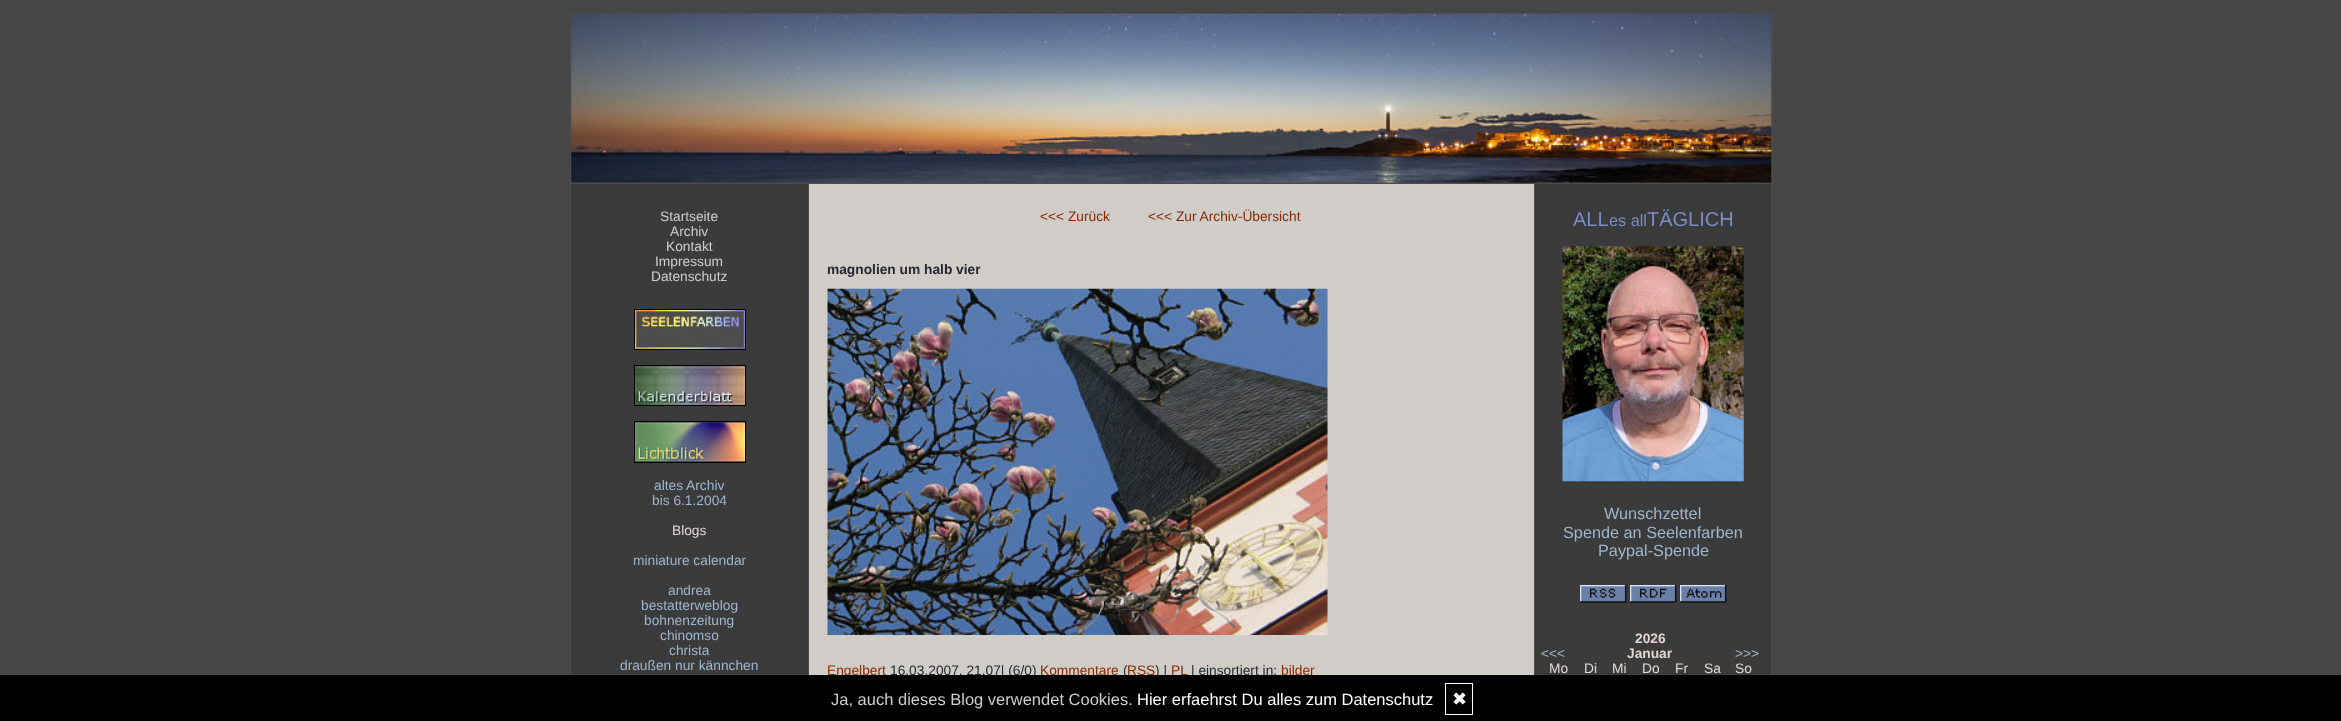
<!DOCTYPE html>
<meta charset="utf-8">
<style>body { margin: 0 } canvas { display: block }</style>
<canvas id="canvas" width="2341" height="721"></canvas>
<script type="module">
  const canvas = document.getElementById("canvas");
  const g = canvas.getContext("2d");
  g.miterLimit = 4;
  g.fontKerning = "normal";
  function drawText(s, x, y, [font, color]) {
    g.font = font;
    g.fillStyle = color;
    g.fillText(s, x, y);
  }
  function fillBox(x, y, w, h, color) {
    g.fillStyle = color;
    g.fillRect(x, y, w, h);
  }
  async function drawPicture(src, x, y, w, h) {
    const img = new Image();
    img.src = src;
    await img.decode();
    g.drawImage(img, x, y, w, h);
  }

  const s1 = ["13.75px Liberation Sans", "#CECECE"];
  const s2 = ["13.75px Liberation Sans", "#9FB6CD"];
  const s3 = ["13.75px Liberation Sans", "#E0D6D2"];
  const s4 = ["13.75px Liberation Sans", "#882904"];
  const s5 = ["bold 13.75px Liberation Sans", "#212830"];
  const s6 = ["13.75px Liberation Sans", "#212830"];
  const s7 = ["20px Liberation Sans", "#7A8DC4"];
  const s8 = ["16.25px Liberation Sans", "#7A8DC4"];
  const s9 = ["16.25px Liberation Sans", "#9FB6CD"];
  const s10 = ["bold 13.75px Liberation Sans", "#E0D6D2"];
  const s11 = ["16.5px Liberation Sans", "#CECECE"];
  const s12 = ["16.5px Liberation Sans", "#FFFFFF"];
  const s13 = ["18px DejaVu Sans", "#FFFFFF"];

  fillBox(0, 0, 2341, 721, "#464646");
  g.strokeStyle = "#4D4D4D";
  g.strokeRect(570.5, 13.5, 1202, 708);
  fillBox(571, 183, 1200, 1, "#4D4D4D");
  await drawPicture("pic1.png", 571, 13, 1201, 170);
  fillBox(571, 184, 237, 491, "#3B3B3B");
  fillBox(808, 184, 1, 491, "#4D4D4D");
  drawText("Startseite", 660, 221, s1);
  drawText("Archiv", 670, 236, s1);
  drawText("Kontakt", 666, 251, s1);
  drawText("Impressum", 655, 266, s1);
  drawText("Datenschutz", 651, 281, s1);
  g.strokeStyle = "#000000";
  g.strokeRect(634.5, 309.5, 111, 40);
  await drawPicture("pic2.png", 635, 310, 110, 39);
  g.strokeRect(634.5, 365.5, 111, 40);
  await drawPicture("pic3.png", 635, 366, 110, 39);
  g.strokeRect(634.5, 421.5, 111, 41);
  await drawPicture("pic4.png", 635, 422, 110, 40);
  drawText("altes Archiv", 654, 490, s2);
  drawText("bis 6.1.2004", 652, 505, s2);
  drawText("Blogs", 672, 535, s3);
  drawText("miniature calendar", 633, 565, s2);
  drawText("andrea", 668, 595, s2);
  drawText("bestatterweblog", 641, 610, s2);
  drawText("bohnenzeitung", 644, 625, s2);
  drawText("chinomso", 660, 640, s2);
  drawText("christa", 669, 655, s2);
  drawText("draußen nur kännchen", 620, 670, s2);
  fillBox(809, 184, 725, 491, "#D0CCC8");
  drawText("<<< Zurück", 1040, 221, s4);
  drawText("<<< Zur Archiv-Übersicht", 1148, 221, s4);
  drawText("magnolien um halb vier", 827, 274, s5);
  await drawPicture("pic5.png", 827, 288, 501, 347);
  drawText("Engelbert", 827, 675, s4);
  drawText("16.03.2007, 21.07| (6/0)", 890, 675, s6);
  drawText("Kommentare", 1040, 675, s4);
  drawText("(", 1123, 675, s6);
  drawText("RSS", 1127, 675, s4);
  drawText(") |", 1155, 675, s6);
  drawText("PL", 1171, 675, s4);
  drawText("| einsortiert in:", 1191, 675, s6);
  drawText("bilder", 1281, 675, s4);
  fillBox(1535, 184, 236, 491, "#3B3B3B");
  fillBox(1534, 184, 1, 491, "#4D4D4D");
  drawText("ALL", 1573, 226, s7);
  drawText("es all", 1609, 226, s8);
  drawText("TÄGLICH", 1647, 226, s7);
  await drawPicture("pic6.png", 1562, 246, 182, 236);
  drawText("Wunschzettel", 1604, 519, s9);
  drawText("Spende an Seelenfarben", 1563, 538, s9);
  drawText("Paypal-Spende", 1598, 556, s9);
  await drawPicture("pic7.png", 1580, 585, 47, 18);
  await drawPicture("pic8.png", 1630, 585, 47, 18);
  await drawPicture("pic9.png", 1680, 585, 47, 18);
  drawText("2026", 1635, 643, s10);
  drawText("<<<", 1541, 658, s2);
  drawText("Januar", 1627, 658, s10);
  drawText(">>>", 1735, 658, s2);
  drawText("Mo", 1549, 673, s3);
  drawText("Di", 1584, 673, s3);
  drawText("Mi", 1612, 673, s3);
  drawText("Do", 1642, 673, s3);
  drawText("Fr", 1675, 673, s3);
  drawText("Sa", 1704, 673, s3);
  drawText("So", 1735, 673, s3);
  fillBox(0, 676, 2341, 45, "#000000");
  g.strokeRect(-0.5, 675.5, 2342, 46);
  drawText("Ja, auch dieses Blog verwendet Cookies.", 831, 705, s11);
  drawText("Hier erfaehrst Du alles zum Datenschutz", 1137, 705, s12);
  g.strokeStyle = "#FFFFFF";
  g.strokeRect(1445.5, 683.5, 27, 31);
  drawText("✖", 1452, 705, s13);
</script>
